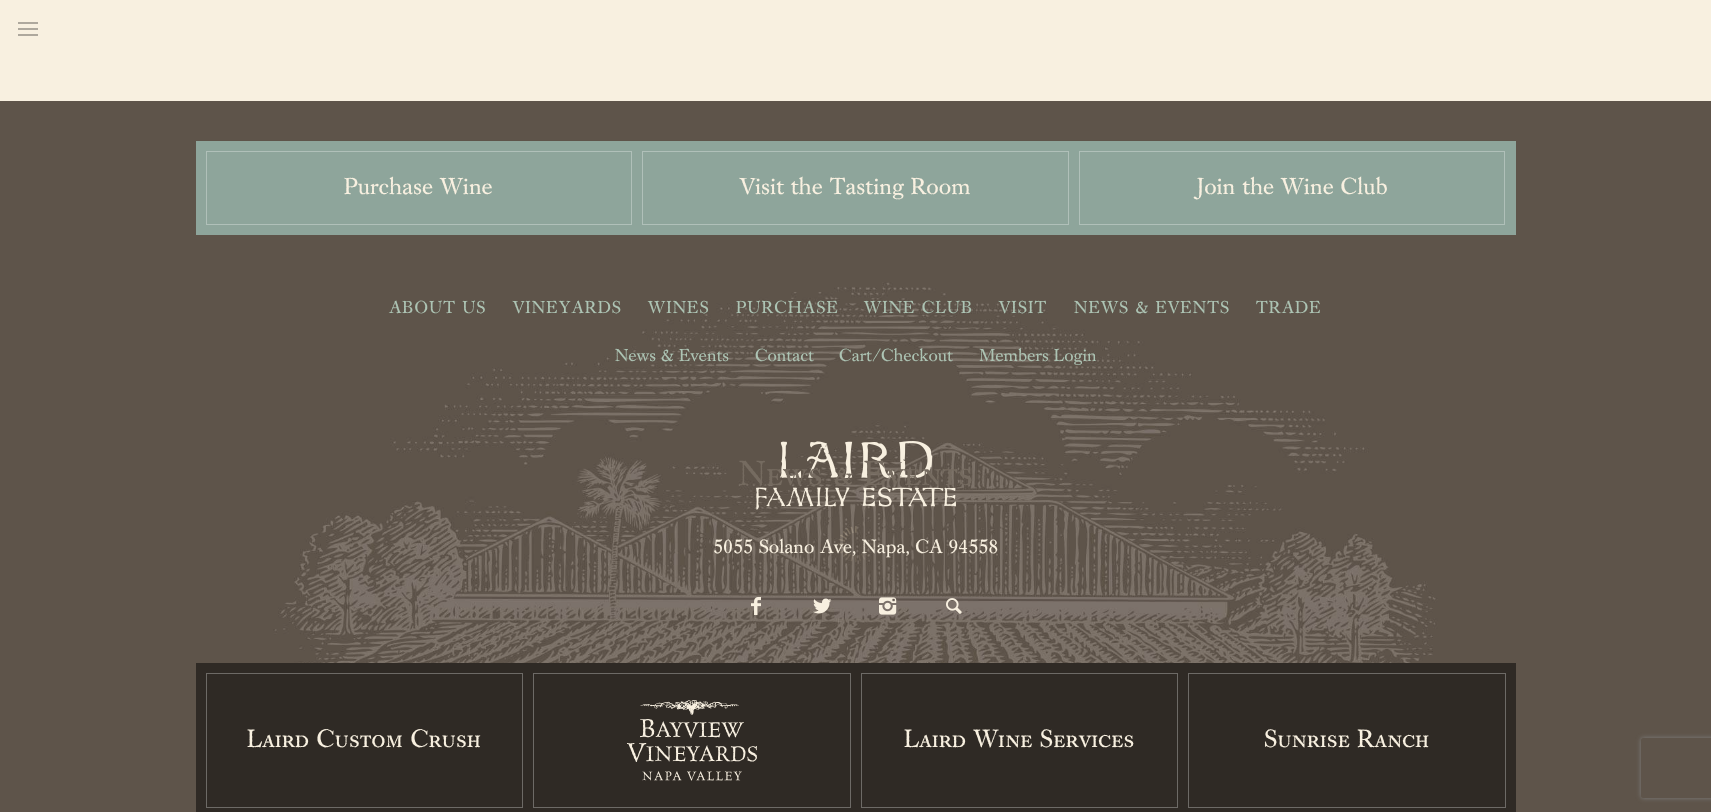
<!DOCTYPE html>
<meta charset="utf-8">
<style>body { margin: 0 } canvas { display: block }</style>
<canvas id="canvas" width="1711" height="812"></canvas>
<script type="module">
  const canvas = document.getElementById("canvas");
  const g = canvas.getContext("2d");
  g.miterLimit = 4;
  g.fontKerning = "normal";
  function drawText(s, x, y, [font, color]) {
    g.font = font;
    g.fillStyle = color;
    g.fillText(s, x, y);
  }
  function fillBox(x, y, w, h, color) {
    g.fillStyle = color;
    g.fillRect(x, y, w, h);
  }
  async function drawPicture(src, x, y, w, h) {
    const img = new Image();
    img.src = src;
    await img.decode();
    g.drawImage(img, x, y, w, h);
  }

  const s1 = ["24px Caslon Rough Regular", "#F8F0E0"];
  const s2 = ["18px Caslon Rough Regular", "#ADC4B4"];
  const s3 = ["20px Caslon Rough Regular", "#F8F0E0"];
  const s4 = ["26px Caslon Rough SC", "#F8F0E0"];
  const s5 = ["36px Caslon Rough SC", "#756B60"];

  fillBox(0, 0, 1711, 812, "#5E544A");
  fillBox(0, 0, 1711, 101, "#F8F0E0");
  fillBox(18, 28, 20, 2, "#AEA89D");
  fillBox(18, 22, 20, 2, "#AEA89D");
  fillBox(18, 34, 20, 2, "#AEA89D");
  fillBox(196, 141, 1320, 94, "#8EA59B");
  g.strokeStyle = "#B0C0B9";
  g.strokeRect(206.5, 151.5, 425, 73);
  drawText("Purchase Wine", 344, 194, s1);
  g.strokeRect(642.5, 151.5, 426, 73);
  drawText("Visit the Tasting Room", 740, 194, s1);
  g.strokeRect(1079.5, 151.5, 425, 73);
  drawText("Join the Wine Club", 1197, 194, s1);
  await drawPicture("pic2.png", 838, 526, 36, 36);
  await drawPicture("pic1.png", 273, 282, 1165, 381);
  g.letterSpacing = "1.1px";
  drawText("ABOUT US", 389, 313, s2);
  drawText("VINEYARDS", 513, 313, s2);
  drawText("WINES", 648, 313, s2);
  drawText("PURCHASE", 736, 313, s2);
  drawText("WINE CLUB", 864, 313, s2);
  drawText("VISIT", 999, 313, s2);
  drawText("NEWS & EVENTS", 1074, 313, s2);
  drawText("TRADE", 1256, 313, s2);
  g.letterSpacing = "0px";
  drawText("News & Events", 615, 361, s2);
  drawText("Contact", 755, 361, s2);
  drawText("Cart/Checkout", 839, 361, s2);
  drawText("Members Login", 979, 361, s2);
  await drawPicture("pic3.png", 756, 441, 200, 69);
  drawText("5055 Solano Ave, Napa, CA 94558", 713, 553, s3);
  await drawPicture("pic4.png", 751, 597, 10, 18);
  await drawPicture("pic5.png", 813, 598, 19, 16);
  await drawPicture("pic6.png", 879, 597, 18, 18);
  await drawPicture("pic7.png", 946, 598, 16, 16);
  fillBox(196, 663, 1320, 149, "#2F2A25");
  g.strokeStyle = "#6D6A66";
  g.strokeRect(206.5, 673.5, 316, 134);
  drawText("Laird Custom Crush", 247, 747, s4);
  g.strokeRect(533.5, 673.5, 317, 134);
  await drawPicture("pic8.png", 627, 700, 130, 81);
  g.strokeRect(861.5, 673.5, 316, 134);
  drawText("Laird Wine Services", 904, 747, s4);
  g.strokeRect(1188.5, 673.5, 317, 134);
  drawText("Sunrise Ranch", 1264, 747, s4);
  drawText("News & Events", 739, 485, s5);
  g.save();
  g.beginPath();
  g.moveTo(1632, 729);
  g.lineTo(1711, 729);
  g.lineTo(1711, 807);
  g.lineTo(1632, 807);
  g.closePath();
  g.moveTo(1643, 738);
  g.lineTo(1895, 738);
  g.bezierCurveTo(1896, 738, 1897, 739, 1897, 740);
  g.lineTo(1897, 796);
  g.bezierCurveTo(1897, 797, 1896, 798, 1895, 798);
  g.lineTo(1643, 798);
  g.bezierCurveTo(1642, 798, 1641, 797, 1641, 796);
  g.lineTo(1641, 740);
  g.bezierCurveTo(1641, 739, 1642, 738, 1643, 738);
  g.closePath();
  g.clip("evenodd");
  g.fillStyle = "#808080";
  g.filter = "blur(2.5px)";
  g.beginPath();
  g.roundRect(1641, 738, 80, 60, 2);
  g.fill();
  g.filter = "none";
  g.restore();
</script>
